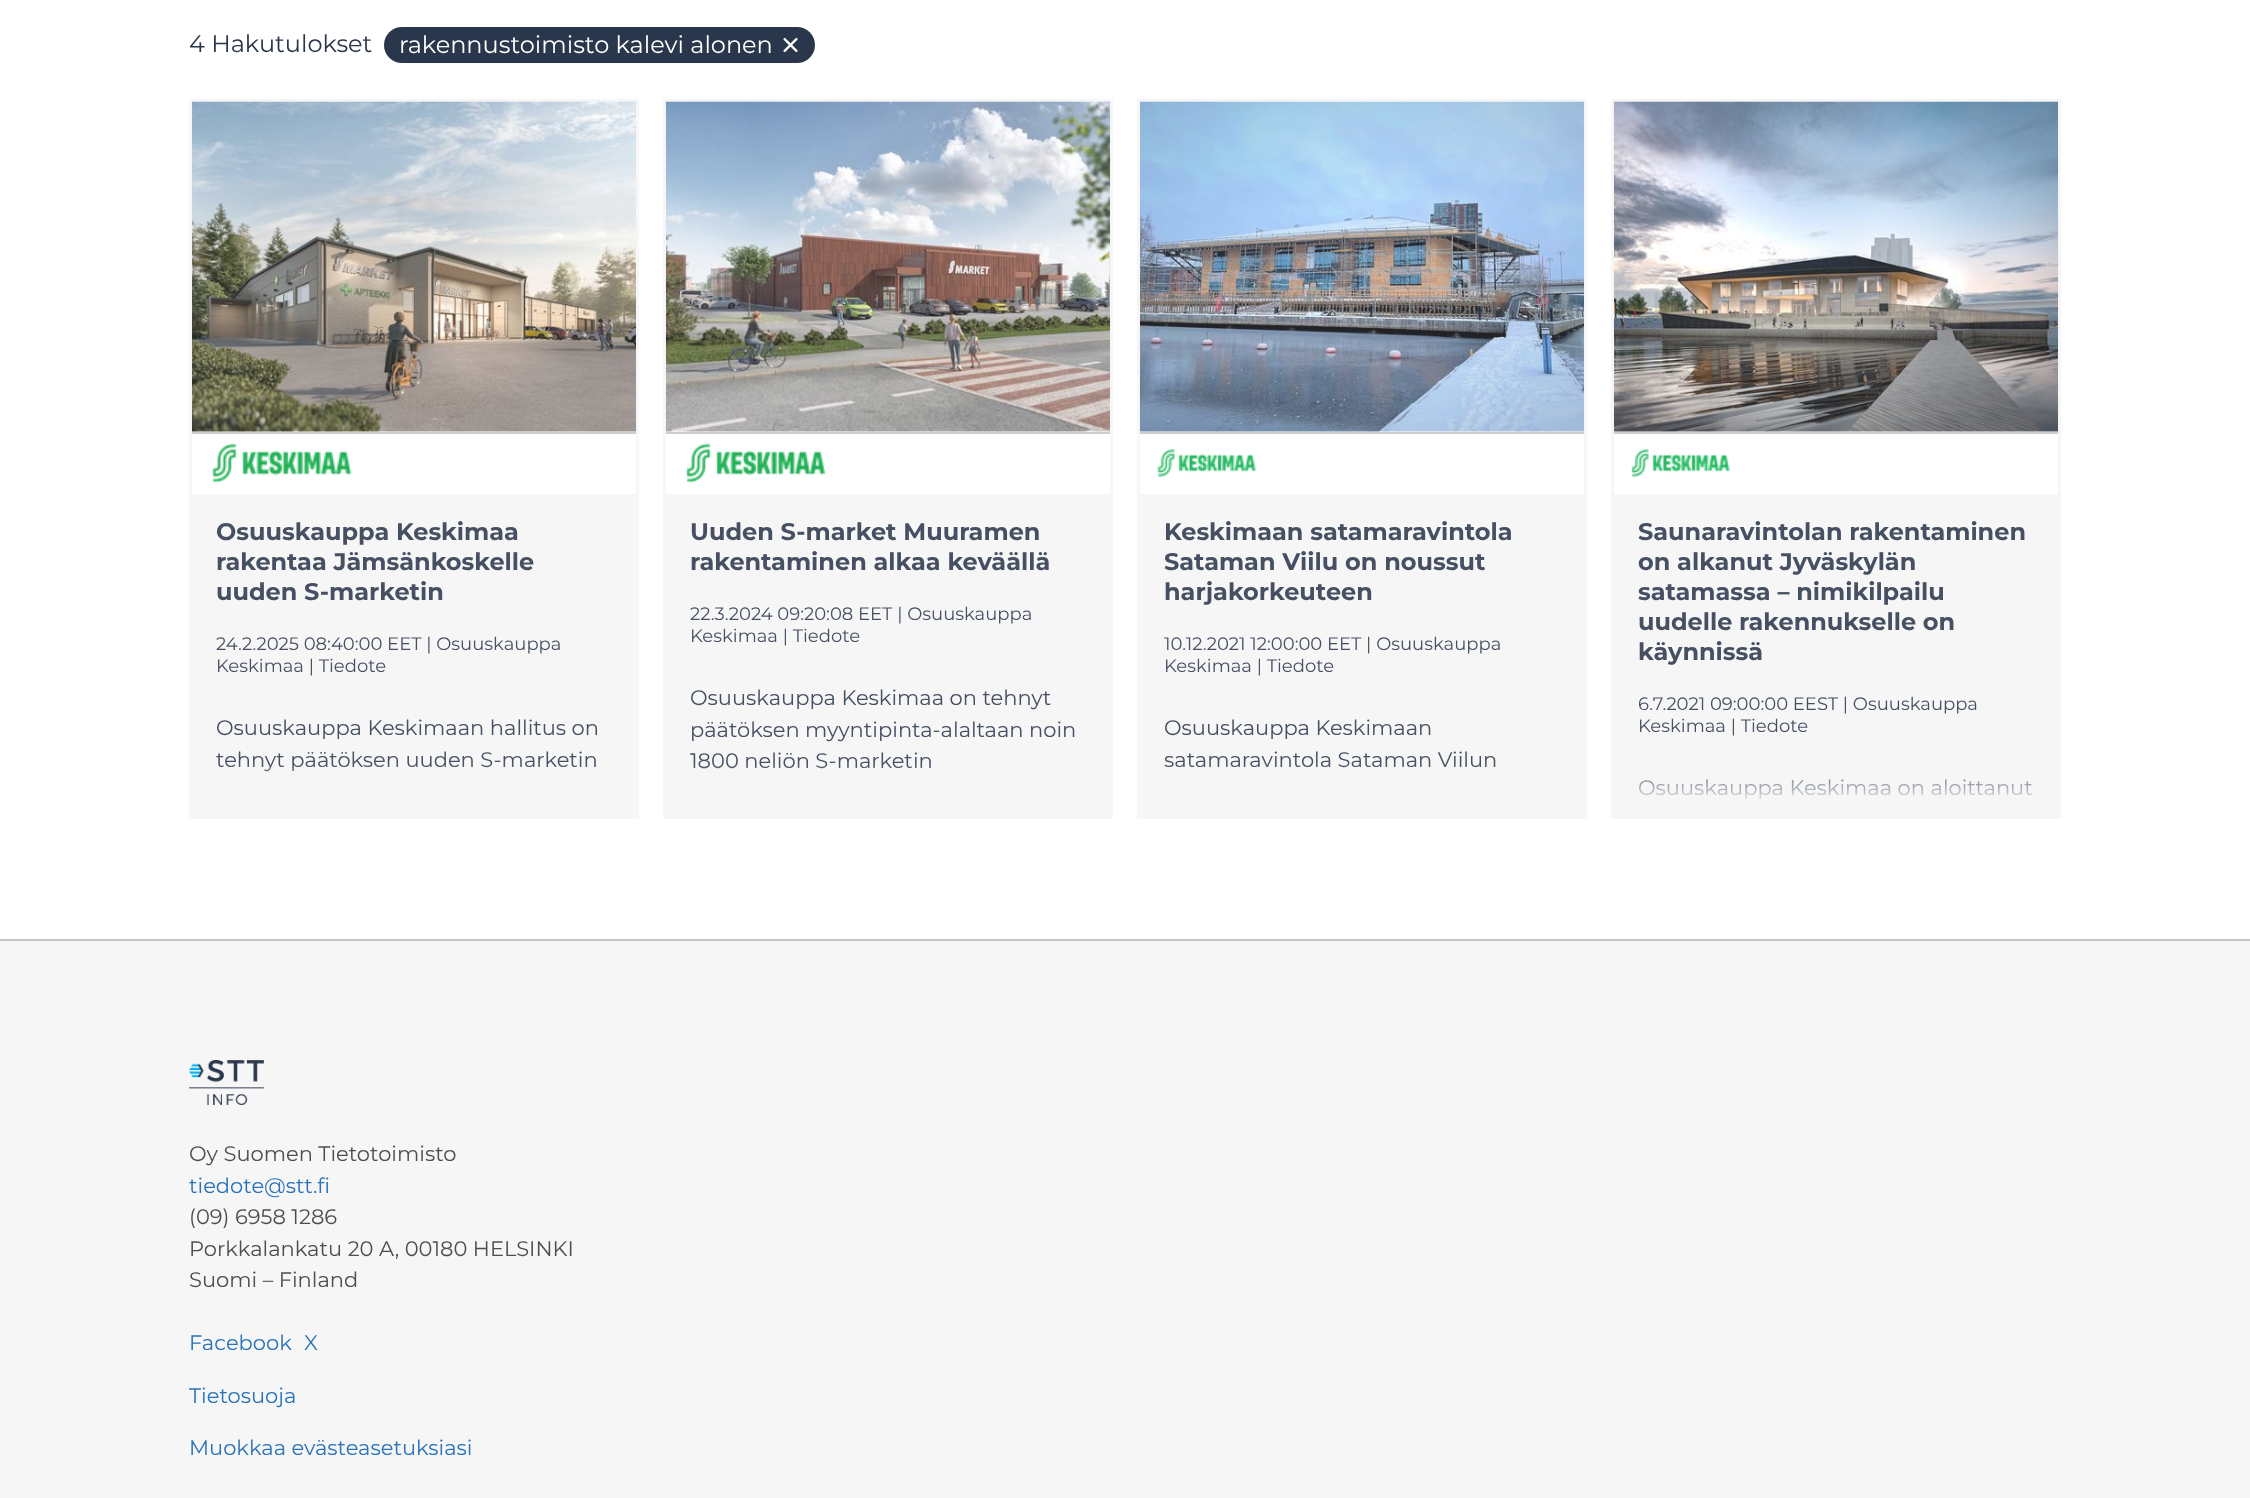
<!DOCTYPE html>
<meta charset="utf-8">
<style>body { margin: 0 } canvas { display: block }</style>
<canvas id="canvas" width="2250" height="1498"></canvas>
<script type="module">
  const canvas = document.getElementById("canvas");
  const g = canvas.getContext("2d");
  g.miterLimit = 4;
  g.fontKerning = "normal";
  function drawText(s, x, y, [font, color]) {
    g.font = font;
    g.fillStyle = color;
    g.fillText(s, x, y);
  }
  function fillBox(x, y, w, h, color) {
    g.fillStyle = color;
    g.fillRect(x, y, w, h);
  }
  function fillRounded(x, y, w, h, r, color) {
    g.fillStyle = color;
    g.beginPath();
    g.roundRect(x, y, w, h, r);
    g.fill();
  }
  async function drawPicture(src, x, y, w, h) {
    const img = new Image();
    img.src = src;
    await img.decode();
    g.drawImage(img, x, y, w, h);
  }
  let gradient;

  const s1 = ["100 24px Montserrat", "#2A364B"];
  const s2 = ["100 24px Montserrat", "#FFFFFF"];
  const s3 = ["100 24px 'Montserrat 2'", "#465062"];
  const s4 = ["100 18px Montserrat", "#465062"];
  const s5 = ["100 21px Montserrat", "#465062"];
  const s6 = ["100 21px Montserrat", "#4E4E4E"];
  const s7 = ["100 21px Montserrat", "#2973BA"];

  fillBox(0, 0, 2250, 1498, "#FFFFFF");
  drawText("4 Hakutulokset", 189, 52, s1);
  fillRounded(384, 27, 431, 36, 18, "#2A364B");
  drawText("rakennustoimisto kalevi alonen", 399, 53, s2);
  await drawPicture("pic1.png", 783, 37, 15, 16);
  fillBox(189, 99, 450, 720, "#F6F6F6");
  fillBox(192, 432, 444, 2, "#CDCDCD");
  fillBox(192, 431, 444, 1, "#FFFFFF");
  await drawPicture("pic2.png", 192, 101, 444, 331);
  fillBox(192, 434, 444, 60, "#FFFFFF");
  await drawPicture("pic3.png", 212, 443, 140, 40);
  drawText("Osuuskauppa Keskimaa", 216, 540, s3);
  drawText("rakentaa Jämsänkoskelle", 216, 570, s3);
  drawText("uuden S-marketin", 216, 600, s3);
  drawText("24.2.2025 08:40:00 EET | Osuuskauppa", 216, 650, s4);
  drawText("Keskimaa | Tiedote", 216, 672, s4);
  drawText("Osuuskauppa Keskimaan hallitus on", 216, 735, s5);
  drawText("tehnyt päätöksen uuden S-marketin", 216, 767, s5);
  gradient = g.createLinearGradient(414, 764, 414, 816);
  gradient.addColorStop(0, "rgba(246, 246, 246, 0)");
  gradient.addColorStop(0.8, "#F6F6F6");
  g.fillStyle = gradient;
  g.fillRect(219, 765, 377, 7);
  fillBox(663, 99, 450, 720, "#F6F6F6");
  fillBox(666, 432, 444, 2, "#CDCDCD");
  fillBox(666, 431, 444, 1, "#FFFFFF");
  await drawPicture("pic4.png", 666, 101, 444, 331);
  fillBox(666, 434, 444, 60, "#FFFFFF");
  await drawPicture("pic5.png", 686, 443, 140, 40);
  drawText("Uuden S-market Muuramen", 690, 540, s3);
  drawText("rakentaminen alkaa keväällä", 690, 570, s3);
  drawText("22.3.2024 09:20:08 EET | Osuuskauppa", 690, 620, s4);
  drawText("Keskimaa | Tiedote", 690, 642, s4);
  drawText("Osuuskauppa Keskimaa on tehnyt", 690, 705, s5);
  drawText("päätöksen myyntipinta-alaltaan noin", 690, 737, s5);
  drawText("1800 neliön S-marketin", 690, 768, s5);
  gradient = g.createLinearGradient(888, 764, 888, 816);
  gradient.addColorStop(0, "rgba(246, 246, 246, 0)");
  gradient.addColorStop(0.8, "#F6F6F6");
  g.fillStyle = gradient;
  g.fillRect(693, 765, 238, 3);
  fillBox(1137, 99, 450, 720, "#F6F6F6");
  fillBox(1140, 432, 444, 2, "#CDCDCD");
  fillBox(1140, 431, 444, 1, "#FFFFFF");
  await drawPicture("pic6.png", 1140, 101, 444, 331);
  fillBox(1140, 434, 444, 60, "#FFFFFF");
  await drawPicture("pic7.png", 1157, 449, 99, 28);
  drawText("Keskimaan satamaravintola", 1164, 540, s3);
  drawText("Sataman Viilu on noussut", 1164, 570, s3);
  drawText("harjakorkeuteen", 1164, 600, s3);
  drawText("10.12.2021 12:00:00 EET | Osuuskauppa", 1164, 650, s4);
  drawText("Keskimaa | Tiedote", 1164, 672, s4);
  drawText("Osuuskauppa Keskimaan", 1164, 735, s5);
  drawText("satamaravintola Sataman Viilun", 1164, 767, s5);
  gradient = g.createLinearGradient(1362, 764, 1362, 816);
  gradient.addColorStop(0, "rgba(246, 246, 246, 0)");
  gradient.addColorStop(0.8, "#F6F6F6");
  g.fillStyle = gradient;
  g.fillRect(1165, 765, 331, 2);
  fillBox(1611, 99, 450, 720, "#F6F6F6");
  fillBox(1614, 432, 444, 2, "#CDCDCD");
  fillBox(1614, 431, 444, 1, "#FFFFFF");
  await drawPicture("pic8.png", 1614, 101, 444, 331);
  fillBox(1614, 434, 444, 60, "#FFFFFF");
  await drawPicture("pic9.png", 1631, 449, 99, 28);
  drawText("Saunaravintolan rakentaminen", 1638, 540, s3);
  drawText("on alkanut Jyväskylän", 1638, 570, s3);
  drawText("satamassa – nimikilpailu", 1638, 600, s3);
  drawText("uudelle rakennukselle on", 1638, 630, s3);
  drawText("käynnissä", 1638, 660, s3);
  drawText("6.7.2021 09:00:00 EEST | Osuuskauppa", 1638, 710, s4);
  drawText("Keskimaa | Tiedote", 1638, 732, s4);
  drawText("Osuuskauppa Keskimaa on aloittanut", 1638, 795, s5);
  gradient = g.createLinearGradient(1836, 764, 1836, 816);
  gradient.addColorStop(0, "rgba(246, 246, 246, 0)");
  gradient.addColorStop(0.8, "#F6F6F6");
  g.fillStyle = gradient;
  g.fillRect(1639, 779, 393, 21);
  fillBox(0, 941, 2250, 557, "#F6F6F6");
  fillBox(0, 939, 2250, 2, "#C6C6C6");
  await drawPicture("pic10.png", 189, 1060, 75, 45);
  drawText("Oy Suomen Tietotoimisto", 189, 1161, s6);
  drawText("tiedote@stt.fi", 189, 1193, s7);
  drawText("(09) 6958 1286", 189, 1224, s6);
  drawText("Porkkalankatu 20 A, 00180 HELSINKI", 189, 1256, s6);
  drawText("Suomi – Finland", 189, 1287, s6);
  drawText("Facebook", 189, 1350, s7);
  drawText("X", 304, 1350, s7);
  drawText("Tietosuoja", 189, 1403, s7);
  drawText("Muokkaa evästeasetuksiasi", 189, 1455, s7);
</script>
